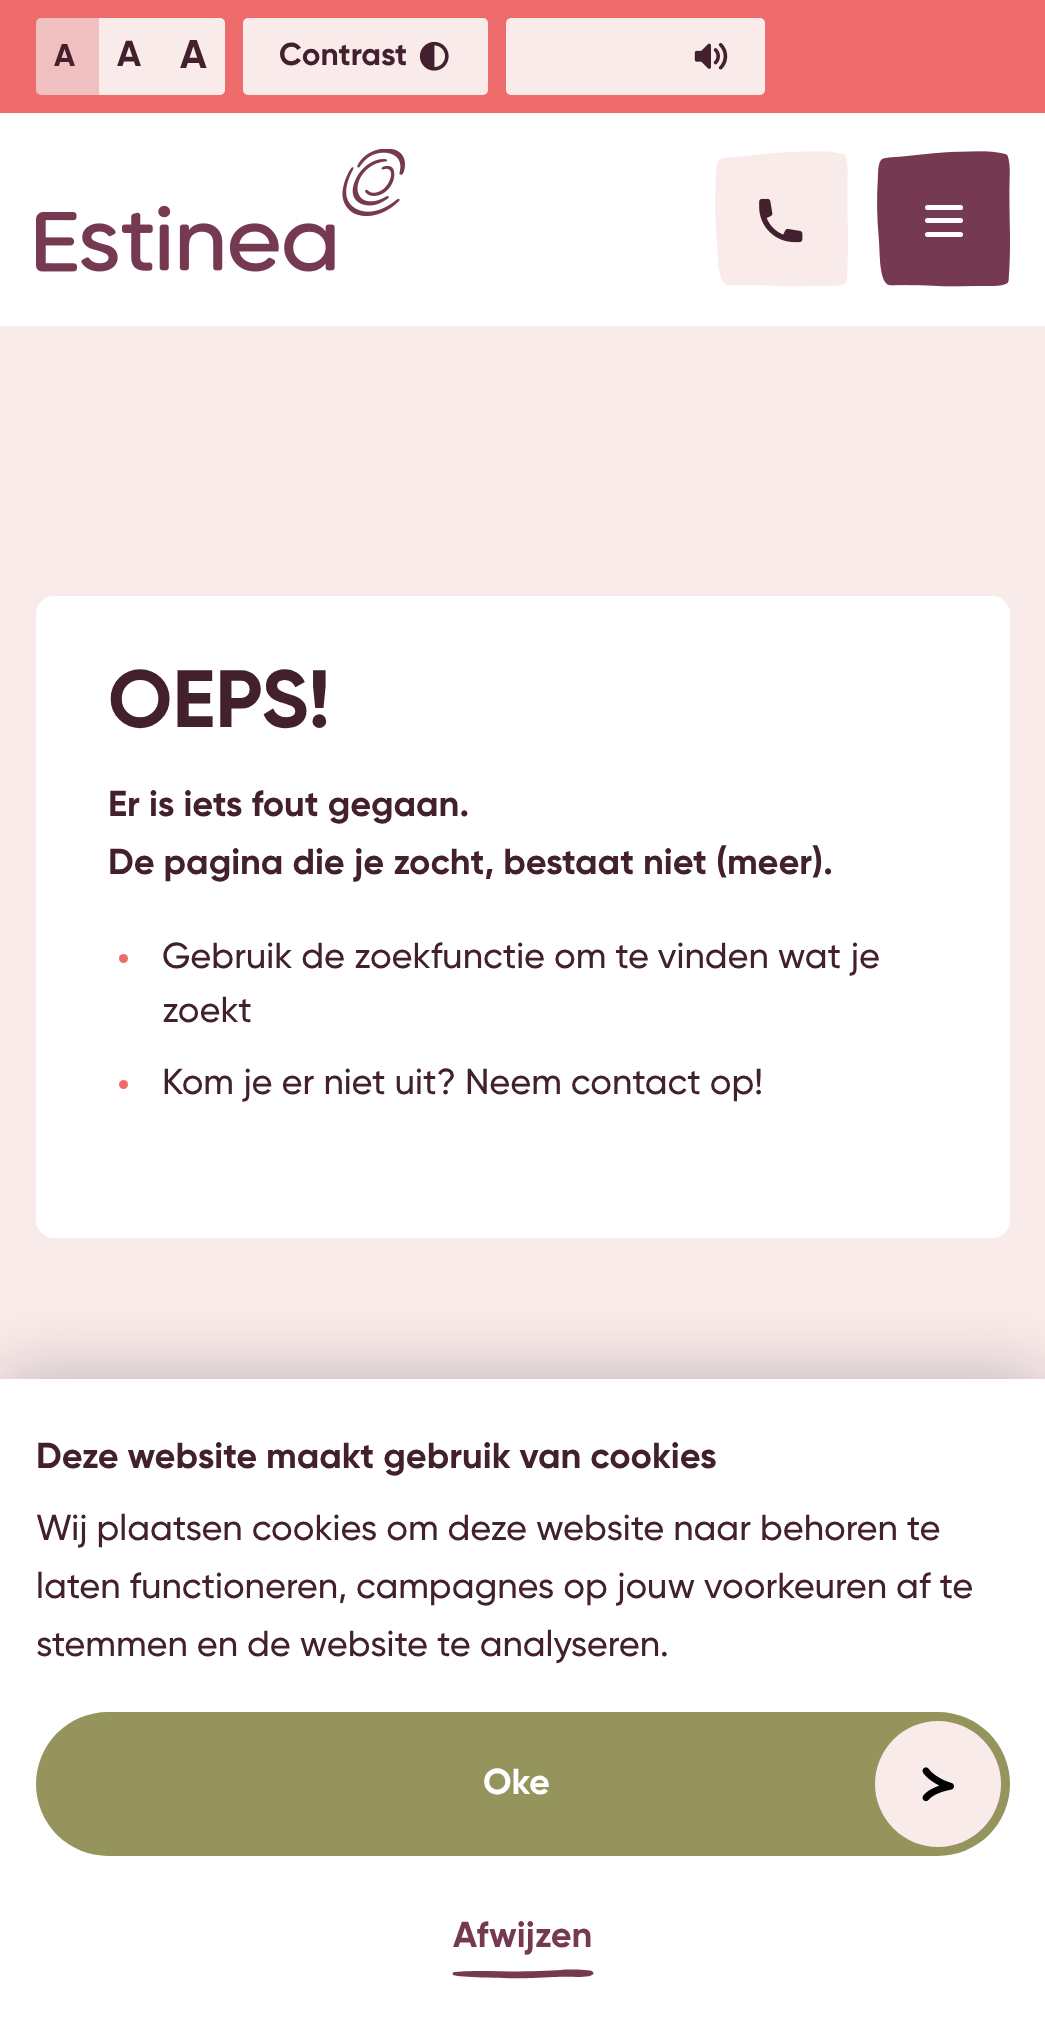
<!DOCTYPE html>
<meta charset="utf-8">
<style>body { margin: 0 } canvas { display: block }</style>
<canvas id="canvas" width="1045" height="2034"></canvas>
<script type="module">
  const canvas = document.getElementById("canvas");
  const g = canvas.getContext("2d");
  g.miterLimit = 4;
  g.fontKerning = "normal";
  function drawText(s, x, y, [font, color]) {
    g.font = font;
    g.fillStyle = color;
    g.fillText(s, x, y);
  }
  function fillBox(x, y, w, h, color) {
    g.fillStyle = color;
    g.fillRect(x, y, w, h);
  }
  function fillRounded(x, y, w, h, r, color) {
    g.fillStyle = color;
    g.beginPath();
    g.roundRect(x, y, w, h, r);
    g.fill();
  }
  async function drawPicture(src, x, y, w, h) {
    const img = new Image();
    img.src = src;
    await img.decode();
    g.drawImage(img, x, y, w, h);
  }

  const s1 = ["bold 31.5px Gilroy", "#42202E"];
  const s2 = ["bold 36px Gilroy", "#42202E"];
  const s3 = ["bold 40px Gilroy", "#42202E"];
  const s4 = ["bold 81px Gilroy", "#42202E"];
  const s5 = ["500 36px Gilroy", "#42202E"];
  const s6 = ["bold 36px Gilroy", "#FFFFFF"];
  const s7 = ["bold 36px Gilroy", "#763952"];

  fillBox(0, 0, 1045, 2034, "#FAEBEB");
  fillBox(0, 0, 1045, 113, "#ED6B6A");
  g.fillStyle = "#EFC0BF";
  g.beginPath();
  g.roundRect(36, 18, 63, 77, [5, 0, 0, 5]);
  g.fill();
  drawText("A", 54, 66, s1);
  fillBox(99, 18, 63, 77, "#FAEBEB");
  drawText("A", 117, 66, s2);
  g.fillStyle = "#FAEBEB";
  g.beginPath();
  g.roundRect(162, 18, 63, 77, [0, 5, 5, 0]);
  g.fill();
  drawText("A", 180, 68, s3);
  fillRounded(243, 18, 245, 77, 5, "#FAEBEB");
  drawText("Contrast", 279, 65, s1);
  await drawPicture("pic1.png", 419, 41, 30, 30);
  fillRounded(506, 18, 259, 77, 5, "#FAEBEB");
  await drawPicture("pic2.png", 694, 43, 34, 27);
  fillBox(0, 113, 1045, 213, "#FFFFFF");
  await drawPicture("pic3.png", 36, 149, 369, 123);
  await drawPicture("pic4.png", 715, 151, 133, 136);
  await drawPicture("pic5.png", 759, 198, 44, 45);
  await drawPicture("pic6.png", 877, 151, 133, 136);
  fillRounded(925, 205, 38, 5, 2.5, "#FFFFFF");
  fillRounded(925, 218, 38, 5, 2.5, "#FFFFFF");
  fillRounded(925, 232, 38, 5, 2.5, "#FFFFFF");
  fillRounded(36, 596, 974, 642, 18, "#FFFFFF");
  drawText("OEPS!", 108, 727, s4);
  drawText("Er is iets fout gegaan.", 108, 816, s2);
  drawText("De pagina die je zocht, bestaat niet (meer).", 108, 874, s2);
  g.fillStyle = "#ED6B6A";
  g.beginPath();
  g.arc(123.5, 958.5, 4.5, 0, Math.PI * 2);
  g.fill();
  drawText("Gebruik de zoekfunctie om te vinden wat je", 162, 968, s5);
  drawText("zoekt", 162, 1022, s5);
  g.fillStyle = "#ED6B6A";
  g.beginPath();
  g.arc(123.5, 1084.5, 4.5, 0, Math.PI * 2);
  g.fill();
  drawText("Kom je er niet uit? Neem contact op!", 162, 1094, s5);
  g.fillStyle = "rgba(0, 0, 0, 0.25)";
  g.filter = "blur(36px)";
  g.beginPath();
  g.rect(0, 1379, 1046, 655);
  g.fill();
  g.filter = "none";
  fillBox(0, 1379, 1045, 655, "#FFFFFF");
  drawText("Deze website maakt gebruik van cookies", 36, 1468, s2);
  drawText("Wij plaatsen cookies om deze website naar behoren te", 36, 1540, s5);
  drawText("laten functioneren, campagnes op jouw voorkeuren af te", 36, 1598, s5);
  drawText("stemmen en de website te analyseren.", 36, 1656, s5);
  fillRounded(36, 1712, 974, 144, 72, "#94945C");
  drawText("Oke", 483, 1794, s6);
  g.fillStyle = "#FAEBEB";
  g.beginPath();
  g.arc(938, 1784, 63, 0, Math.PI * 2);
  g.fill();
  await drawPicture("pic7.png", 922, 1767, 32, 35);
  drawText("Afwijzen", 453, 1947, s7);
  g.beginPath();
  g.moveTo(453, 1975);
  g.bezierCurveTo(455, 1977, 514, 1979, 532, 1978);
  g.bezierCurveTo(532, 1978, 565, 1976, 578, 1977);
  g.bezierCurveTo(585, 1977, 598, 1976, 592, 1971);
  g.bezierCurveTo(591, 1970, 568, 1969, 561, 1970);
  g.bezierCurveTo(545, 1971, 514, 1972, 488, 1971);
  g.bezierCurveTo(474, 1971, 463, 1971, 455, 1972);
  g.bezierCurveTo(453, 1972, 452, 1973, 453, 1975);
  g.closePath();
  g.fill("evenodd");
</script>
